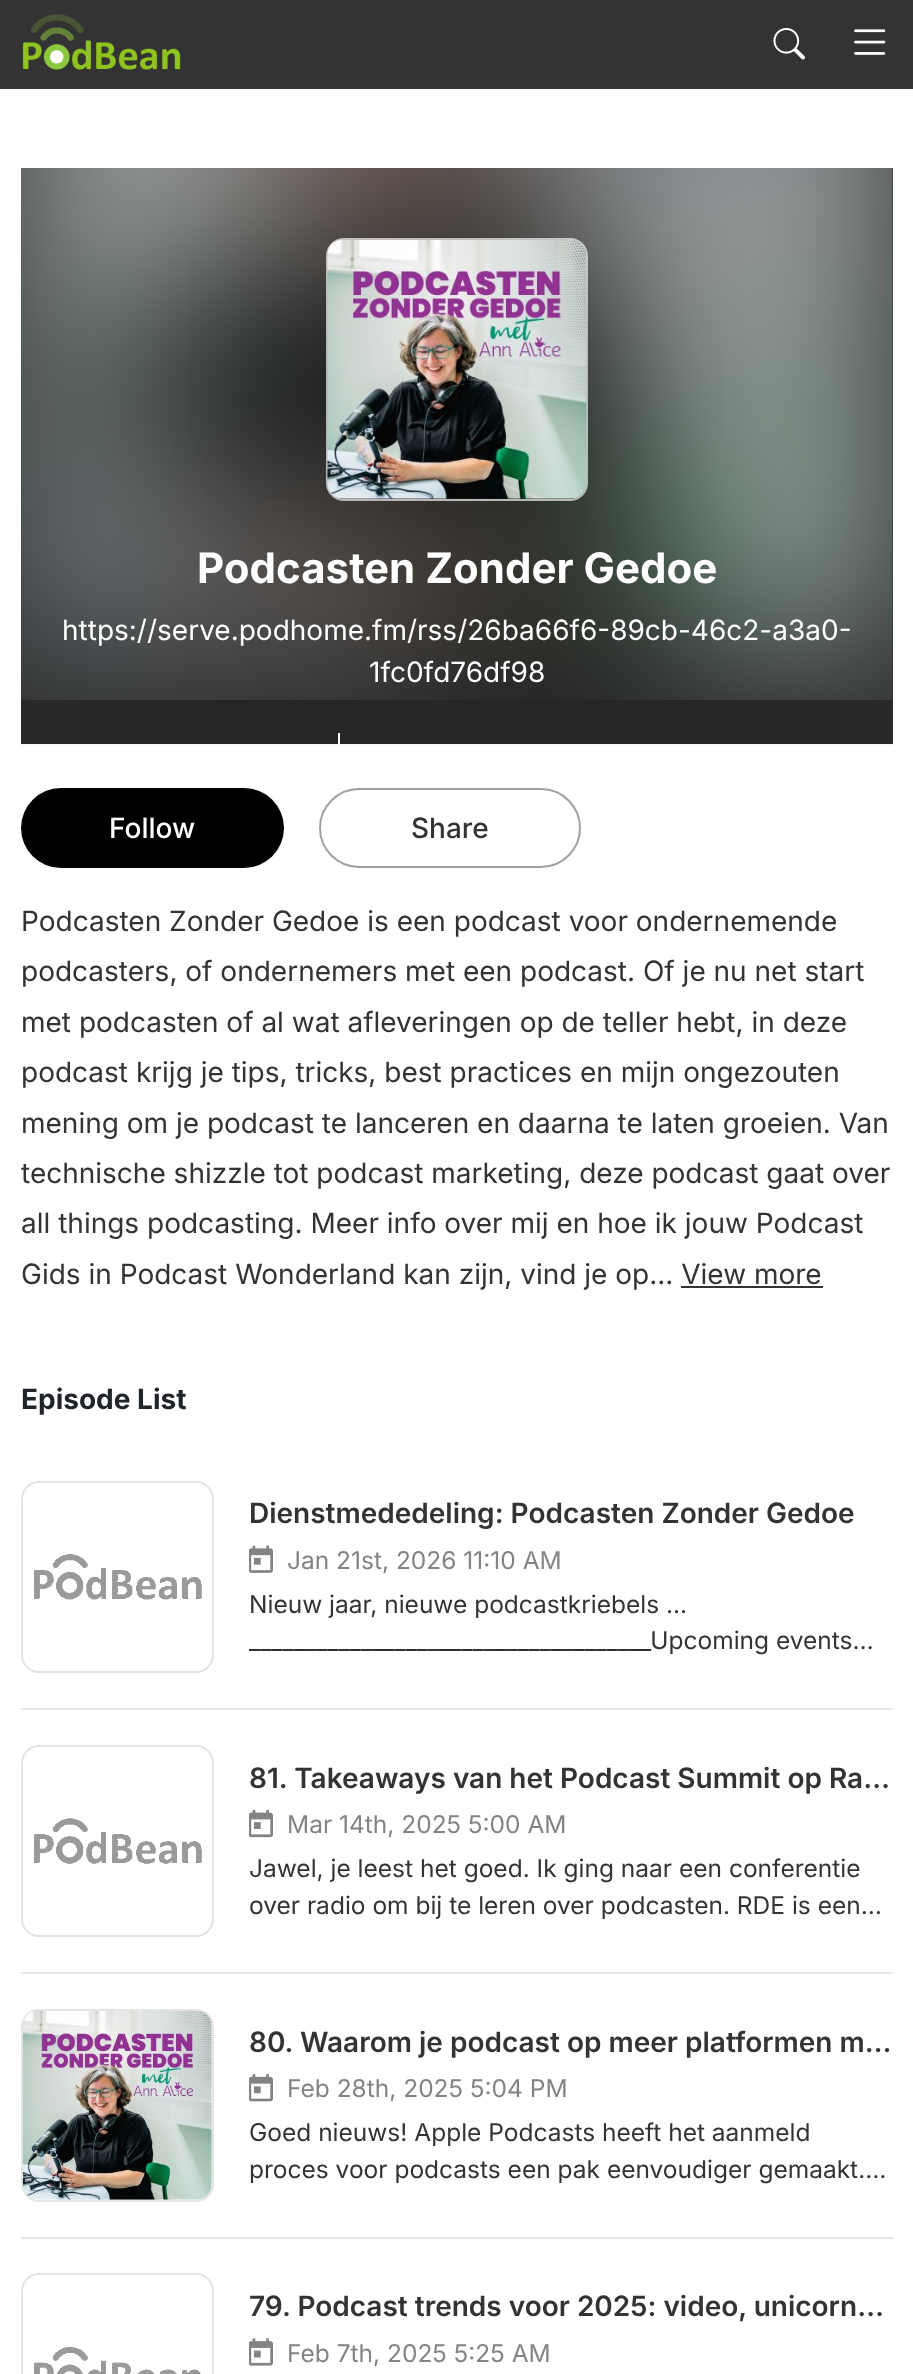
<!DOCTYPE html>
<meta charset="utf-8">
<style>body { margin: 0 } canvas { display: block }</style>
<canvas id="canvas" width="913" height="2374"></canvas>
<script type="module">
  const canvas = document.getElementById("canvas");
  const g = canvas.getContext("2d");
  g.miterLimit = 4;
  g.fontKerning = "normal";
  function drawText(s, x, y, [font, color]) {
    g.font = font;
    g.fillStyle = color;
    g.fillText(s, x, y);
  }
  function fillBox(x, y, w, h, color) {
    g.fillStyle = color;
    g.fillRect(x, y, w, h);
  }
  function fillRounded(x, y, w, h, r, color) {
    g.fillStyle = color;
    g.beginPath();
    g.roundRect(x, y, w, h, r);
    g.fill();
  }
  async function drawPicture(src, x, y, w, h) {
    const img = new Image();
    img.src = src;
    await img.decode();
    g.drawImage(img, x, y, w, h);
  }
  let gradient;

  const s1 = ["bold 42px Inter", "#FFFFFF"];
  const s2 = ["28px Inter", "#FFFFFF"];
  const s3 = ["500 28px Inter", "#FFFFFF"];
  const s4 = ["500 28px Inter", "#333333"];
  const s5 = ["28px Inter", "#333333"];
  const s6 = ["bold 28px Inter", "#212529"];
  const s7 = ["600 28px Inter", "#333333"];
  const s8 = ["24.5px Inter", "#838383"];
  const s9 = ["24.5px Inter", "#333333"];

  fillBox(0, 0, 913, 2374, "#FFFFFF");
  fillBox(0, 89, 913, 1, "#F1F1F1");
  fillBox(0, 0, 913, 88, "#333333");
  fillBox(0, 88, 913, 1, "#393939");
  await drawPicture("pic1.png", 22, 14, 159, 56);
  await drawPicture("pic2.png", 773, 28, 32, 32);
  await drawPicture("pic3.png", 854, 29, 32, 26);
  fillBox(21, 744, 872, 2, "#F8F8F8");
  fillBox(21, 168, 872, 576, "#333333");
  await drawPicture("pic4.png", 21, 168, 872, 532);
  gradient = g.createLinearGradient(21, 457, 893, 457);
  gradient.addColorStop(0, "rgba(0, 0, 0, 0.2)");
  gradient.addColorStop(0.5, "rgba(23, 23, 23, 0.45)");
  gradient.addColorStop(1, "rgba(0, 0, 0, 0.2)");
  g.fillStyle = gradient;
  g.fillRect(21, 168, 872, 576);
  g.beginPath();
  g.roundRect(327, 239, 260, 261, 17);
  g.strokeStyle = "rgba(255, 255, 255, 0.65)";
  g.lineWidth = 2;
  g.stroke();
  await drawPicture("pic5.png", 327, 239, 260, 260);
  drawText("Podcasten Zonder Gedoe", 197, 583, s1);
  drawText("https://serve.podhome.fm/rss/26ba66f6-89cb-46c2-a3a0-", 62, 640, s2);
  drawText("1fc0fd76df98", 369, 682, s2);
  fillBox(338, 733, 2, 11, "#FFFFFF");
  fillRounded(21, 788, 263, 80, 40, "#000000");
  drawText("Follow", 109, 838, s3);
  g.beginPath();
  g.roundRect(320, 789, 260, 78, 39);
  g.strokeStyle = "#A0A0A0";
  g.stroke();
  drawText("Share", 411, 838, s4);
  drawText("Podcasten Zonder Gedoe is een podcast voor ondernemende", 21, 931, s5);
  drawText("podcasters, of ondernemers met een podcast. Of je nu net start", 21, 981, s5);
  drawText("met podcasten of al wat afleveringen op de teller hebt, in deze", 21, 1032, s5);
  drawText("podcast krijg je tips, tricks, best practices en mijn ongezouten", 21, 1082, s5);
  drawText("mening om je podcast te lanceren en daarna te laten groeien. Van", 21, 1133, s5);
  drawText("technische shizzle tot podcast marketing, deze podcast gaat over", 21, 1183, s5);
  drawText("all things podcasting. Meer info over mij en hoe ik jouw Podcast", 21, 1233, s5);
  drawText("Gids in Podcast Wonderland kan zijn, vind je op... View more", 21, 1284, s5);
  fillBox(681, 1286, 142, 2, "#333333");
  drawText("Episode List", 21, 1409, s6);
  fillBox(21, 1708, 872, 2, "#E4E4E4");
  g.beginPath();
  g.roundRect(22, 1482, 191, 190, 17);
  g.strokeStyle = "#E4E4E4";
  g.stroke();
  await drawPicture("pic6.png", 34, 1554, 168, 46);
  drawText("Dienstmededeling: Podcasten Zonder Gedoe", 249, 1523, s7);
  await drawPicture("pic7.png", 249, 1545, 24, 28);
  drawText("Jan 21st, 2026 11:10 AM", 287, 1569, s8);
  drawText("Nieuw jaar, nieuwe podcastkriebels ...", 249, 1613, s9);
  drawText("____________________________________Upcoming events…", 249, 1649, s9);
  fillBox(21, 1972, 872, 2, "#E4E4E4");
  g.beginPath();
  g.roundRect(22, 1746, 191, 190, 17);
  g.stroke();
  await drawPicture("pic8.png", 34, 1818, 168, 46);
  drawText("81. Takeaways van het Podcast Summit op Ra…", 249, 1788, s7);
  await drawPicture("pic9.png", 249, 1810, 24, 28);
  drawText("Mar 14th, 2025 5:00 AM", 287, 1833, s8);
  drawText("Jawel, je leest het goed. Ik ging naar een conferentie", 249, 1877, s9);
  drawText("over radio om bij te leren over podcasten. RDE is een…", 249, 1914, s9);
  fillBox(21, 2237, 872, 2, "#E4E4E4");
  g.beginPath();
  g.roundRect(22, 2010, 191, 191, 17);
  g.stroke();
  await drawPicture("pic10.png", 22, 2011, 190, 189);
  drawText("80. Waarom je podcast op meer platformen m…", 249, 2052, s7);
  await drawPicture("pic11.png", 249, 2074, 24, 28);
  drawText("Feb 28th, 2025 5:04 PM", 287, 2097, s8);
  drawText("Goed nieuws! Apple Podcasts heeft het aanmeld", 249, 2141, s9);
  drawText("proces voor podcasts een pak eenvoudiger gemaakt.…", 249, 2178, s9);
  g.beginPath();
  g.roundRect(22, 2274, 191, 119, 17);
  g.stroke();
  await drawPicture("pic12.png", 34, 2347, 167, 27);
  drawText("79. Podcast trends voor 2025: video, unicorn…", 249, 2316, s7);
  await drawPicture("pic13.png", 249, 2338, 24, 28);
  drawText("Feb 7th, 2025 5:25 AM", 287, 2362, s8);
</script>
